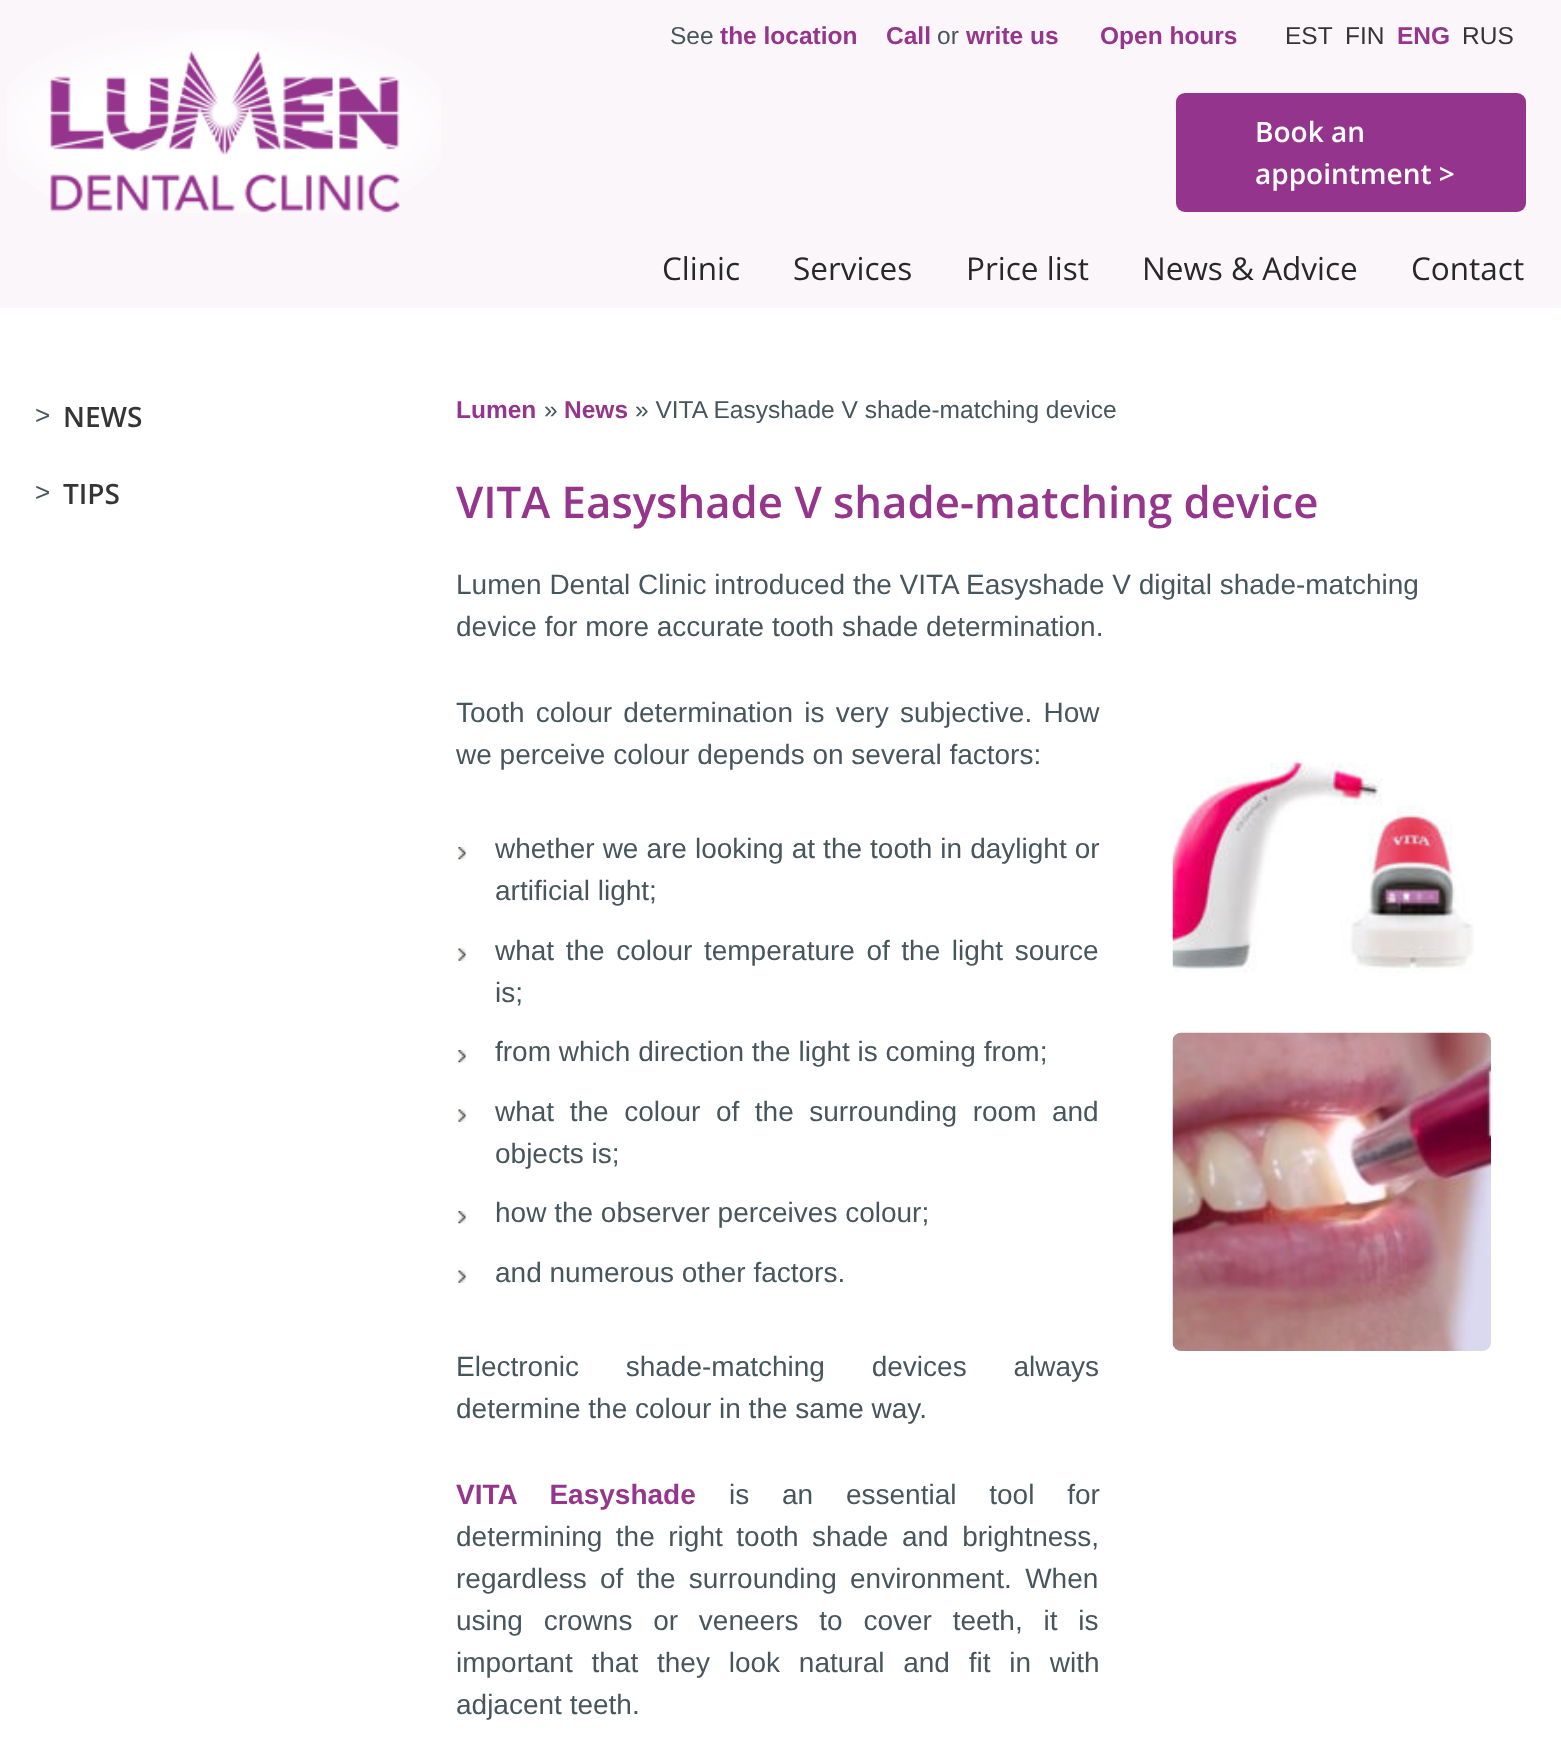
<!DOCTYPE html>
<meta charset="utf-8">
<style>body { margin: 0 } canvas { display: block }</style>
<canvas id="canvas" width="1561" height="1762"></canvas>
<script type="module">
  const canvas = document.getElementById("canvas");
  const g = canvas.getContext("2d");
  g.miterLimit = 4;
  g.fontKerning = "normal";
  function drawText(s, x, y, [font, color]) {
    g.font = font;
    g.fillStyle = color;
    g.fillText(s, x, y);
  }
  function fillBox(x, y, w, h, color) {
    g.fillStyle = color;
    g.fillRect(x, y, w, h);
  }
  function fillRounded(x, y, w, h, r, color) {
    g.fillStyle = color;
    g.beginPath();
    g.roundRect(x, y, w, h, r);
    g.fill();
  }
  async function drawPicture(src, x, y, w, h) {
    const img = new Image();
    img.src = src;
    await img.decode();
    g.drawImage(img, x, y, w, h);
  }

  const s1 = ["24.5px Liberation Sans", "#47565D"];
  const s2 = ["bold 24.5px Liberation Sans", "#95358C"];
  const s3 = ["24.5px Liberation Sans", "#353535"];
  const s4 = ["600 28px Open Sans", "#FFFFFF"];
  const s5 = ["31.5px Open Sans", "#282828"];
  const s6 = ["26px Liberation Sans", "#47565D"];
  const s7 = ["600 28px Open Sans", "#353535"];
  const s8 = ["600 43.75px Open Sans", "#95358C"];
  const s9 = ["28px Liberation Sans", "#47565D"];
  const s10 = ["bold 28px Liberation Sans", "#95358C"];

  fillBox(0, 0, 1561, 1762, "#FFFFFF");
  fillBox(0, 0, 1561, 308, "#FBF6FA");
  await drawPicture("pic1.png", 7, 29, 434, 184);
  drawText("See", 670, 44, s1);
  drawText("the location", 720, 44, s2);
  drawText("Call", 886, 44, s2);
  drawText("or", 937, 44, s1);
  drawText("write us", 966, 44, s2);
  drawText("Open hours", 1100, 44, s2);
  drawText("EST", 1285, 44, s3);
  drawText("FIN", 1345, 44, s3);
  drawText("ENG", 1397, 44, s2);
  drawText("RUS", 1462, 44, s3);
  fillRounded(1176, 93, 350, 119, 9, "#95348D");
  drawText("Book an", 1255, 142, s4);
  drawText("appointment >", 1255, 184, s4);
  drawText("Clinic", 662, 280, s5);
  drawText("Services", 793, 280, s5);
  drawText("Price list", 966, 280, s5);
  drawText("News & Advice", 1142, 280, s5);
  drawText("Contact", 1411, 280, s5);
  drawText(">", 35, 424, s6);
  drawText("NEWS", 63, 427, s7);
  drawText(">", 35, 501, s6);
  drawText("TIPS", 63, 504, s7);
  drawText("Lumen", 456, 418, s2);
  drawText("»", 544, 418, s1);
  drawText("News", 564, 418, s2);
  drawText("» VITA Easyshade V shade-matching device", 635, 418, s1);
  drawText("VITA Easyshade V shade-matching device", 456, 518, s8);
  drawText("Lumen Dental Clinic introduced the VITA Easyshade V digital shade-matching", 456, 594, s9);
  drawText("device for more accurate tooth shade determination.", 456, 636, s9);
  g.wordSpacing = "3.5px";
  drawText("Tooth colour determination is very subjective. How", 456, 722, s9);
  g.wordSpacing = "0px";
  drawText("we perceive colour depends on several factors:", 456, 764, s9);
  await drawPicture("pic2.png", 458, 847, 8, 13);
  g.wordSpacing = "0.25px";
  drawText("whether we are looking at the tooth in daylight or", 495, 858, s9);
  g.wordSpacing = "0px";
  drawText("artificial light;", 495, 900, s9);
  await drawPicture("pic3.png", 458, 948, 8, 13);
  g.wordSpacing = "3.75px";
  drawText("what the colour temperature of the light source", 495, 960, s9);
  g.wordSpacing = "0px";
  drawText("is;", 495, 1002, s9);
  await drawPicture("pic2.png", 458, 1050, 8, 13);
  drawText("from which direction the light is coming from;", 495, 1061, s9);
  await drawPicture("pic3.png", 458, 1109, 8, 13);
  g.wordSpacing = "7.75px";
  drawText("what the colour of the surrounding room and", 495, 1121, s9);
  g.wordSpacing = "0px";
  drawText("objects is;", 495, 1163, s9);
  await drawPicture("pic2.png", 458, 1211, 8, 13);
  drawText("how the observer perceives colour;", 495, 1222, s9);
  await drawPicture("pic3.png", 458, 1270, 8, 13);
  drawText("and numerous other factors.", 495, 1282, s9);
  g.wordSpacing = "39px";
  drawText("Electronic shade-matching devices always", 456, 1376, s9);
  g.wordSpacing = "0px";
  drawText("determine the colour in the same way.", 456, 1418, s9);
  g.wordSpacing = "25px";
  drawText("VITA Easyshade", 456, 1504, s10);
  drawText("is an essential tool for", 729, 1504, s9);
  g.wordSpacing = "5.75px";
  drawText("determining the right tooth shade and brightness,", 456, 1546, s9);
  g.wordSpacing = "5.5px";
  drawText("regardless of the surrounding environment. When", 456, 1588, s9);
  g.wordSpacing = "13px";
  drawText("using crowns or veneers to cover teeth, it is", 456, 1630, s9);
  g.wordSpacing = "11px";
  drawText("important that they look natural and fit in with", 456, 1672, s9);
  g.wordSpacing = "0px";
  drawText("adjacent teeth.", 456, 1714, s9);
  await drawPicture("pic4.png", 1172, 759, 302, 214);
  await drawPicture("pic5.png", 1172, 1032, 319, 319);
</script>
